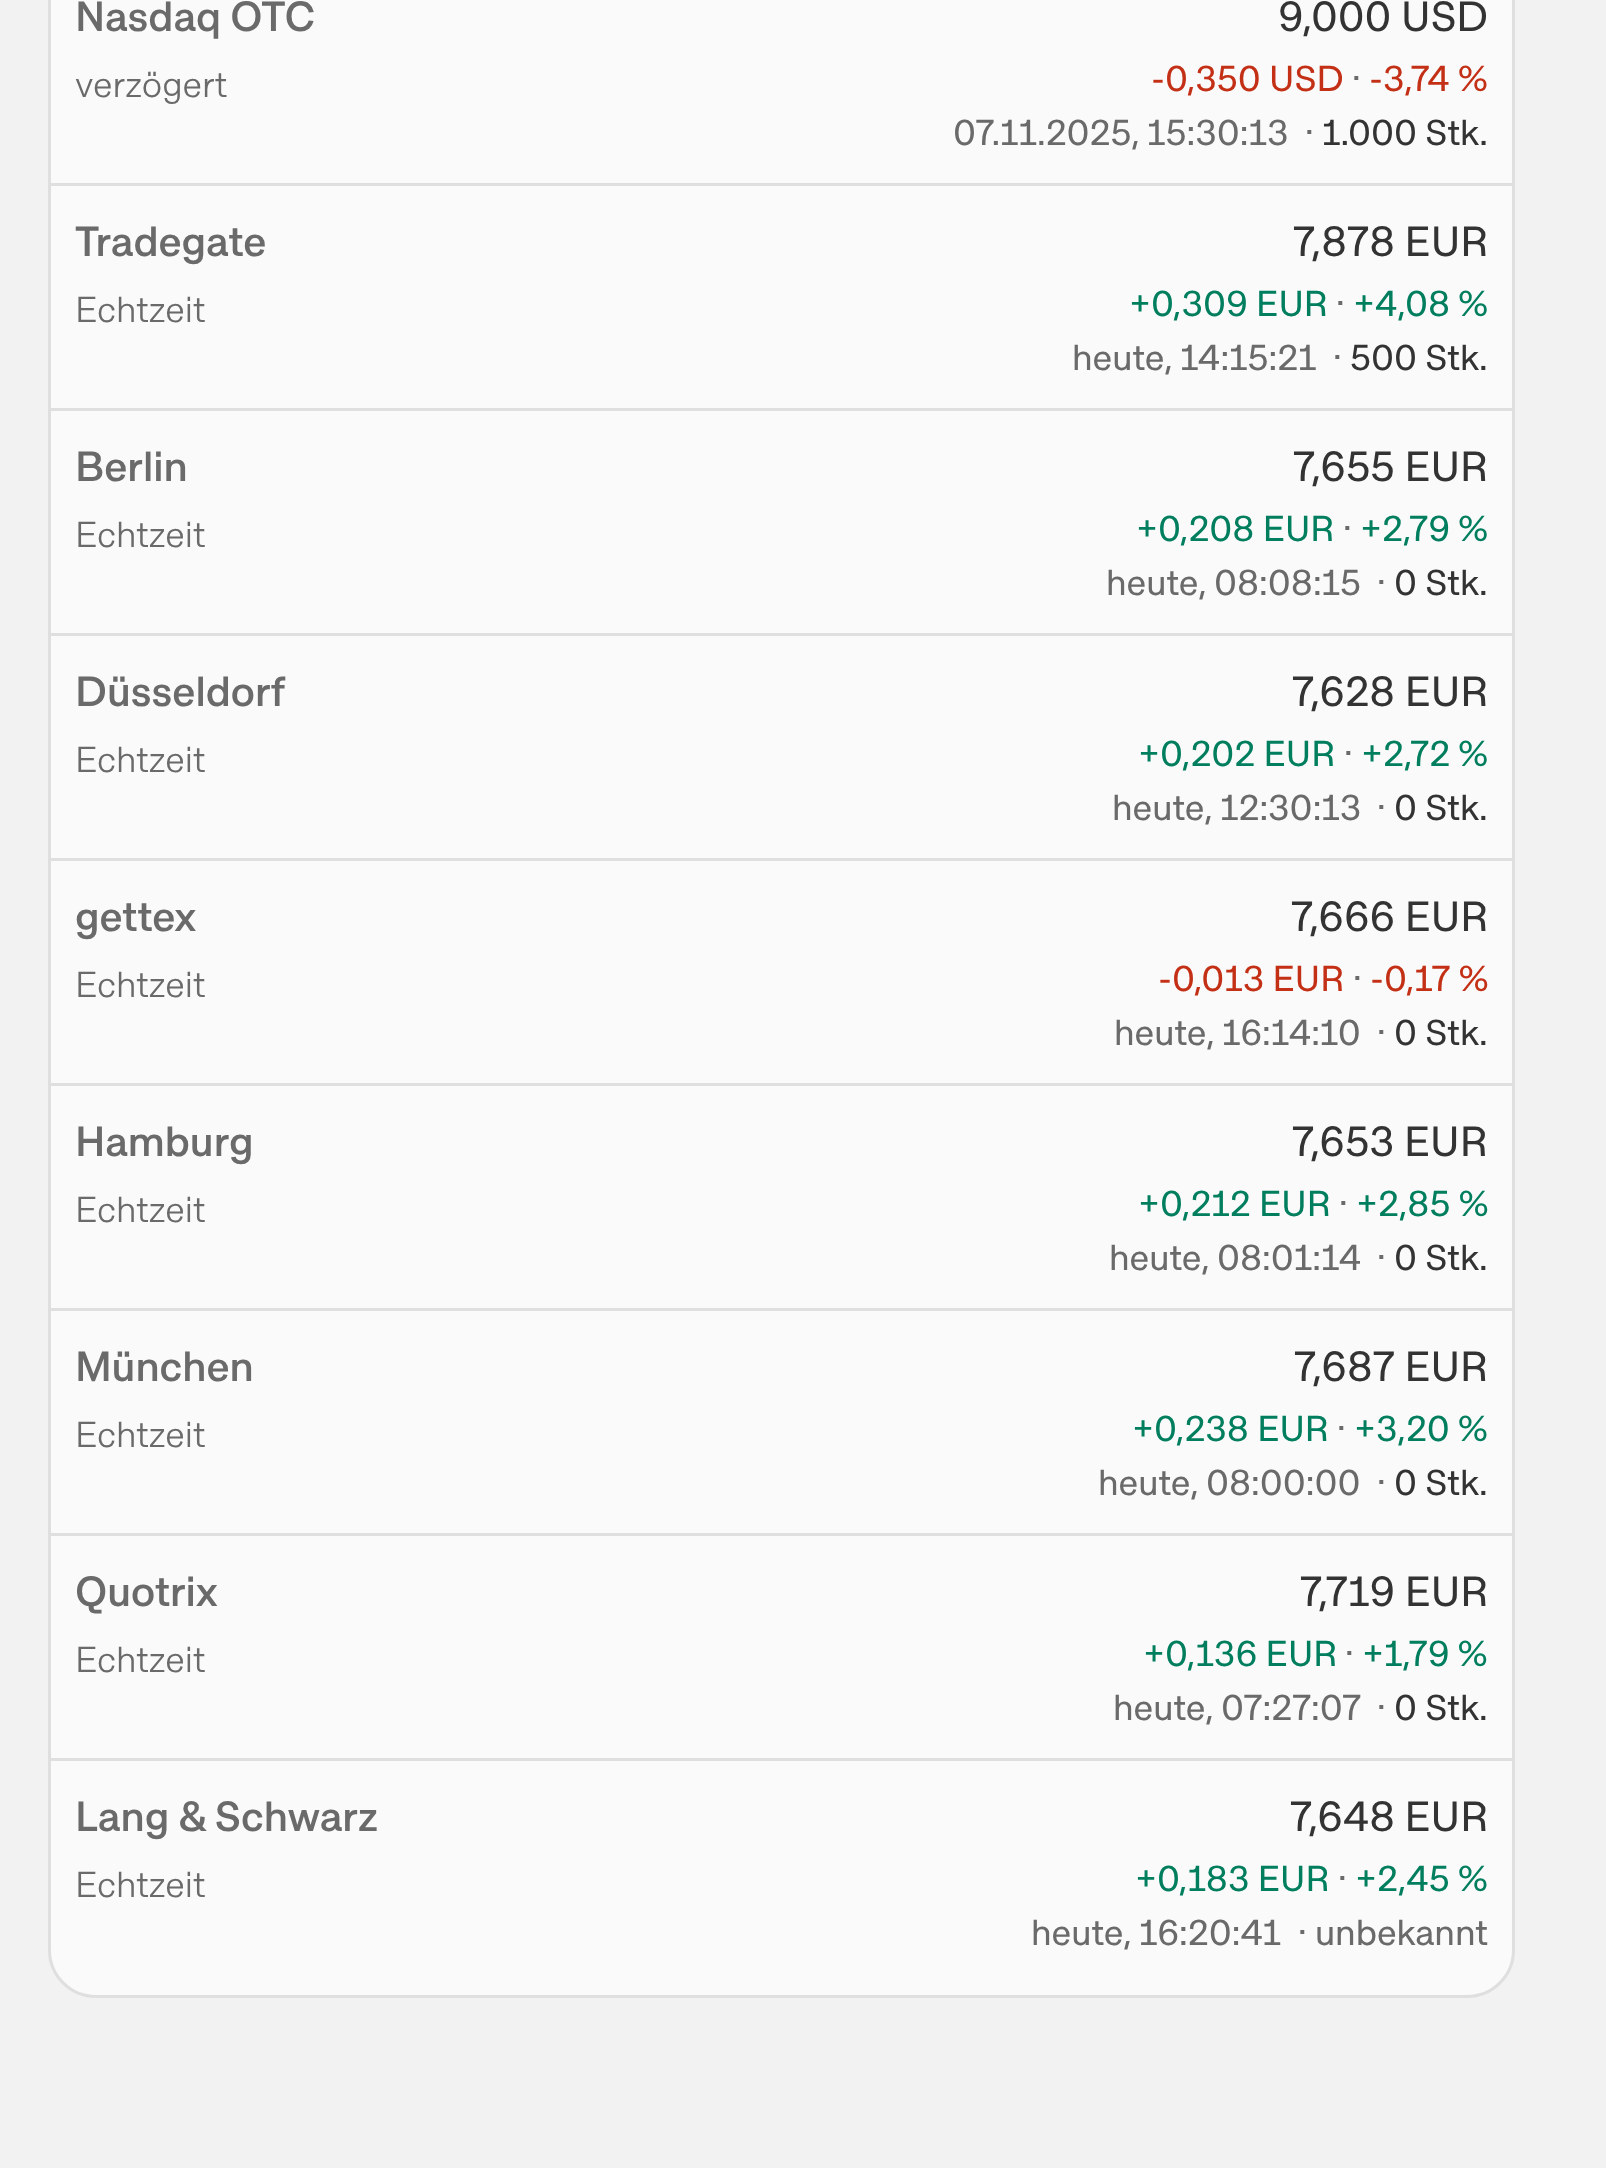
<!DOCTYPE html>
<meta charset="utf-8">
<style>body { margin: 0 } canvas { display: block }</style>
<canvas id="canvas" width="1606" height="2168"></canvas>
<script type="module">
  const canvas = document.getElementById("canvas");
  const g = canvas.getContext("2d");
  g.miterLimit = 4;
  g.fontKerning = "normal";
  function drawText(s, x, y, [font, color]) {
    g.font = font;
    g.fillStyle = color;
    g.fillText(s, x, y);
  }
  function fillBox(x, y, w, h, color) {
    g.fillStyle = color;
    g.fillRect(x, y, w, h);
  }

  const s1 = ["500 42px 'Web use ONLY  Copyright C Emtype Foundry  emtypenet'", "#6A6A6A"];
  const s2 = ["300 36px 'Web use ONLY  Copyright C Emtype Foundry  emtypenet'", "#6A6A6A"];
  const s3 = ["42px 'Web use ONLY  Copyright C Emtype Foundry  emtypenet'", "#333333"];
  const s4 = ["36px 'Web use ONLY  Copyright C Emtype Foundry  emtypenet'", "#C33016"];
  const s5 = ["36px 'Web use ONLY  Copyright C Emtype Foundry  emtypenet'", "#6A6A6A"];
  const s6 = ["36px 'Web use ONLY  Copyright C Emtype Foundry  emtypenet'", "#333333"];
  const s7 = ["36px 'Web use ONLY  Copyright C Emtype Foundry  emtypenet'", "#007E5E"];

  fillBox(0, 0, 1606, 2168, "#F2F2F2");
  g.fillStyle = "#FAFAFA";
  g.beginPath();
  g.roundRect(49.5, -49.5, 1464, 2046, 46.5);
  g.fill();
  g.strokeStyle = "#DFDFDF";
  g.lineWidth = 3;
  g.stroke();
  fillBox(51, 183, 1461, 3, "#DFDFDF");
  drawText("Nasdaq OTC", 75, 31, s1);
  drawText("verzögert", 75, 97, s2);
  drawText("9,000 USD", 1278, 31, s3);
  drawText("-0,350 USD", 1151, 91, s4);
  drawText("·", 1352, 91, s5);
  drawText("-3,74 %", 1369, 91, s4);
  drawText("07.11.2025, 15:30:13", 953, 145, s5);
  drawText("·", 1305, 145, s5);
  drawText("1.000 Stk.", 1322, 145, s6);
  fillBox(51, 408, 1461, 3, "#DFDFDF");
  drawText("Tradegate", 75, 256, s1);
  drawText("Echtzeit", 75, 322, s2);
  drawText("7,878 EUR", 1293, 256, s3);
  drawText("+0,309 EUR", 1129, 316, s7);
  drawText("·", 1336, 316, s5);
  drawText("+4,08 %", 1353, 316, s7);
  drawText("heute, 14:15:21", 1072, 370, s5);
  drawText("·", 1333, 370, s5);
  drawText("500 Stk.", 1350, 370, s6);
  fillBox(51, 633, 1461, 3, "#DFDFDF");
  drawText("Berlin", 75, 481, s1);
  drawText("Echtzeit", 75, 547, s2);
  drawText("7,655 EUR", 1293, 481, s3);
  drawText("+0,208 EUR", 1136, 541, s7);
  drawText("·", 1343, 541, s5);
  drawText("+2,79 %", 1360, 541, s7);
  drawText("heute, 08:08:15", 1106, 595, s5);
  drawText("·", 1377, 595, s5);
  drawText("0 Stk.", 1394, 595, s6);
  fillBox(51, 858, 1461, 3, "#DFDFDF");
  drawText("Düsseldorf", 75, 706, s1);
  drawText("Echtzeit", 75, 772, s2);
  drawText("7,628 EUR", 1292, 706, s3);
  drawText("+0,202 EUR", 1138, 766, s7);
  drawText("·", 1344, 766, s5);
  drawText("+2,72 %", 1361, 766, s7);
  drawText("heute, 12:30:13", 1112, 820, s5);
  drawText("·", 1377, 820, s5);
  drawText("0 Stk.", 1394, 820, s6);
  fillBox(51, 1083, 1461, 3, "#DFDFDF");
  drawText("gettex", 75, 931, s1);
  drawText("Echtzeit", 75, 997, s2);
  drawText("7,666 EUR", 1291, 931, s3);
  drawText("-0,013 EUR", 1158, 991, s4);
  drawText("·", 1353, 991, s5);
  drawText("-0,17 %", 1370, 991, s4);
  drawText("heute, 16:14:10", 1114, 1045, s5);
  drawText("·", 1377, 1045, s5);
  drawText("0 Stk.", 1394, 1045, s6);
  fillBox(51, 1308, 1461, 3, "#DFDFDF");
  drawText("Hamburg", 75, 1156, s1);
  drawText("Echtzeit", 75, 1222, s2);
  drawText("7,653 EUR", 1292, 1156, s3);
  drawText("+0,212 EUR", 1138, 1216, s7);
  drawText("·", 1339, 1216, s5);
  drawText("+2,85 %", 1356, 1216, s7);
  drawText("heute, 08:01:14", 1109, 1270, s5);
  drawText("·", 1377, 1270, s5);
  drawText("0 Stk.", 1394, 1270, s6);
  fillBox(51, 1533, 1461, 3, "#DFDFDF");
  drawText("München", 75, 1381, s1);
  drawText("Echtzeit", 75, 1447, s2);
  drawText("7,687 EUR", 1294, 1381, s3);
  drawText("+0,238 EUR", 1132, 1441, s7);
  drawText("·", 1337, 1441, s5);
  drawText("+3,20 %", 1354, 1441, s7);
  drawText("heute, 08:00:00", 1098, 1495, s5);
  drawText("·", 1377, 1495, s5);
  drawText("0 Stk.", 1394, 1495, s6);
  fillBox(51, 1758, 1461, 3, "#DFDFDF");
  drawText("Quotrix", 75, 1606, s1);
  drawText("Echtzeit", 75, 1672, s2);
  drawText("7,719 EUR", 1300, 1606, s3);
  drawText("+0,136 EUR", 1143, 1666, s7);
  drawText("·", 1345, 1666, s5);
  drawText("+1,79 %", 1362, 1666, s7);
  drawText("heute, 07:27:07", 1113, 1720, s5);
  drawText("·", 1377, 1720, s5);
  drawText("0 Stk.", 1394, 1720, s6);
  drawText("Lang & Schwarz", 75, 1831, s1);
  drawText("Echtzeit", 75, 1897, s2);
  drawText("7,648 EUR", 1290, 1831, s3);
  drawText("+0,183 EUR", 1135, 1891, s7);
  drawText("·", 1338, 1891, s5);
  drawText("+2,45 %", 1355, 1891, s7);
  drawText("heute, 16:20:41", 1031, 1945, s5);
  drawText("· unbekannt", 1298, 1945, s5);
</script>
